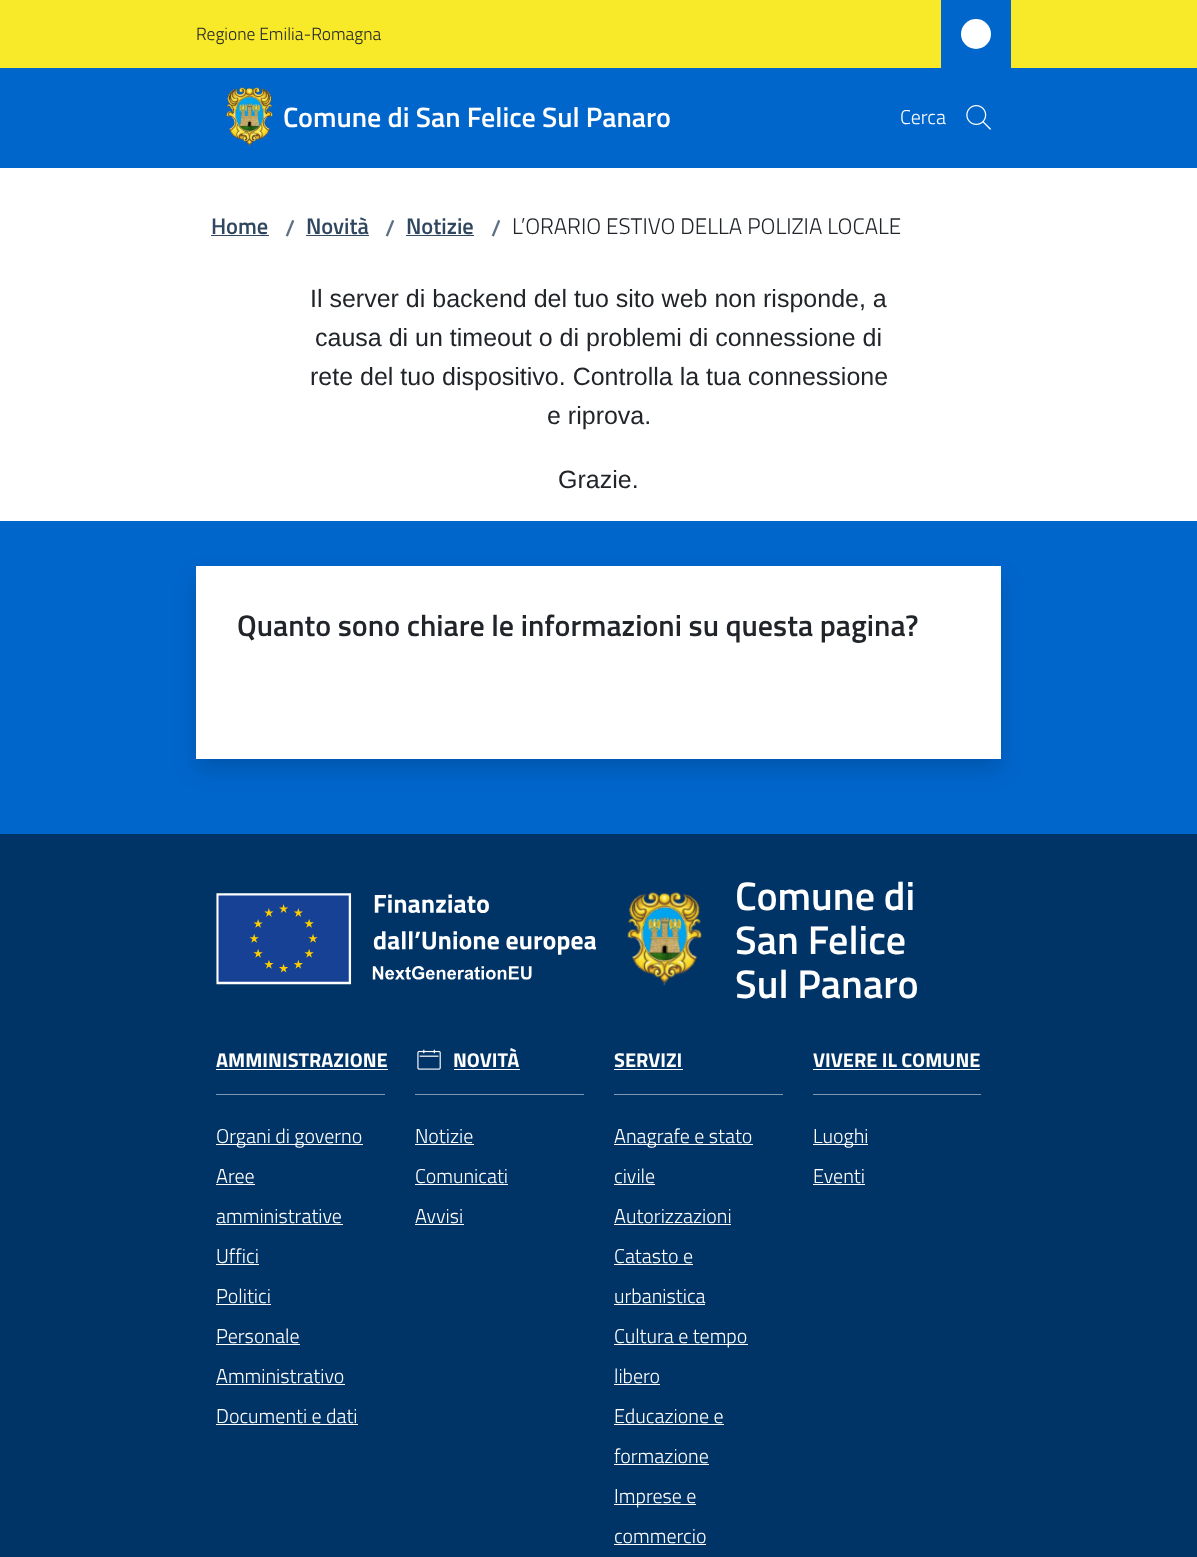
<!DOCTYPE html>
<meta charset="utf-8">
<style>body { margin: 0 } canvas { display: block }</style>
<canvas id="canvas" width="1197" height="1557"></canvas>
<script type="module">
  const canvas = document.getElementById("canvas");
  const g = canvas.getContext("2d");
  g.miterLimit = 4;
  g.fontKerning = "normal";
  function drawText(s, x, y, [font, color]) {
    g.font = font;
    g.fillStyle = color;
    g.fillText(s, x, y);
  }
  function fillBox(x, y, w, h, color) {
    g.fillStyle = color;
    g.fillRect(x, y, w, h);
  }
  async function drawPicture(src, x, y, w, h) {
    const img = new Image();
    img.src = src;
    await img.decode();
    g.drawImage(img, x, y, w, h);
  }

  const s1 = ["300 17.5px Titillium Web", "#212529"];
  const s2 = ["600 28.1px Titillium Web", "#FFFFFF"];
  const s3 = ["300 20px Titillium Web", "#FFFFFF"];
  const s4 = ["600 22.5px Titillium Web", "#30475F"];
  const s5 = ["600 22.5px Titillium Web", "#5D7083"];
  const s6 = ["300 22.5px Titillium Web", "#212529"];
  const s7 = ["25px Liberation Sans", "#212529"];
  const s8 = ["600 30px Titillium Web", "#212529"];
  const s9 = ["600 40px Titillium Web", "#FFFFFF"];
  const s10 = ["bold 20px Titillium Web", "#FFFFFF"];

  fillBox(0, 0, 1197, 1557, "#FFFFFF");
  fillBox(0, 0, 1197, 68, "#F8EA29");
  drawText("Regione Emilia-Romagna", 196, 40, s1);
  fillBox(941, 0, 70, 68, "#0066CC");
  g.fillStyle = "#FFFFFF";
  g.beginPath();
  g.arc(976, 34, 15, 0, Math.PI * 2);
  g.fill();
  fillBox(0, 68, 1197, 100, "#0066CC");
  await drawPicture("pic1.png", 226, 87, 47, 60);
  drawText("Comune di San Felice Sul Panaro", 283, 127, s2);
  drawText("Cerca", 900, 124, s3);
  await drawPicture("pic2.png", 966, 105, 25, 25);
  drawText("Home", 211, 234, s4);
  fillBox(211, 235, 58, 1, "#30475F");
  drawText("/", 285, 236, s5);
  drawText("Novità", 306, 234, s4);
  fillBox(306, 235, 63, 1, "#30475F");
  drawText("/", 385, 236, s5);
  drawText("Notizie", 406, 234, s4);
  fillBox(406, 235, 68, 1, "#30475F");
  drawText("/", 491, 236, s5);
  drawText("L’ORARIO ESTIVO DELLA POLIZIA LOCALE", 512, 234, s6);
  drawText("Il server di backend del tuo sito web non risponde, a", 310, 307, s7);
  drawText("causa di un timeout o di problemi di connessione di", 315, 346, s7);
  drawText("rete del tuo dispositivo. Controlla la tua connessione", 310, 385, s7);
  drawText("e riprova.", 547, 424, s7);
  drawText("Grazie.", 558, 488, s7);
  fillBox(0, 521, 1197, 313, "#0066CC");
  g.fillStyle = "rgba(0, 0, 0, 0.15)";
  g.filter = "blur(11px)";
  g.beginPath();
  g.rect(196, 578, 805, 192);
  g.fill();
  g.filter = "none";
  fillBox(196, 566, 805, 193, "#FFFFFF");
  drawText("Quanto sono chiare le informazioni su questa pagina?", 237, 636, s8);
  fillBox(0, 834, 1197, 723, "#003366");
  await drawPicture("pic3.png", 216, 893, 380, 92);
  await drawPicture("pic4.png", 627, 892, 75, 94);
  drawText("Comune di", 735, 910, s9);
  drawText("San Felice", 735, 954, s9);
  drawText("Sul Panaro", 735, 998, s9);
  fillBox(216, 1094, 169, 1, "#8099B3");
  drawText("AMMINISTRAZIONE", 216, 1067, s10);
  fillBox(216, 1069, 172, 1, "#FFFFFF");
  fillBox(216, 1144, 147, 1, "#FFFFFF");
  drawText("Organi di governo", 216, 1143, s3);
  drawText("Aree", 216, 1183, s3);
  fillBox(216, 1184, 39, 1, "#FFFFFF");
  drawText("amministrative", 216, 1223, s3);
  fillBox(216, 1224, 127, 1, "#FFFFFF");
  drawText("Uffici", 216, 1263, s3);
  fillBox(216, 1264, 43, 1, "#FFFFFF");
  drawText("Politici", 216, 1303, s3);
  fillBox(216, 1304, 55, 1, "#FFFFFF");
  drawText("Personale", 216, 1343, s3);
  fillBox(216, 1344, 84, 1, "#FFFFFF");
  drawText("Amministrativo", 216, 1383, s3);
  fillBox(216, 1384, 129, 1, "#FFFFFF");
  drawText("Documenti e dati", 216, 1423, s3);
  fillBox(216, 1424, 142, 1, "#FFFFFF");
  fillBox(415, 1094, 169, 1, "#8099B3");
  await drawPicture("pic5.png", 417, 1049, 24, 21);
  drawText("NOVITÀ", 453, 1067, s10);
  fillBox(454, 1069, 66, 1, "#FFFFFF");
  drawText("Notizie", 415, 1143, s3);
  fillBox(415, 1144, 59, 1, "#FFFFFF");
  drawText("Comunicati", 415, 1183, s3);
  fillBox(415, 1184, 93, 1, "#FFFFFF");
  drawText("Avvisi", 415, 1223, s3);
  fillBox(415, 1224, 49, 1, "#FFFFFF");
  fillBox(614, 1094, 169, 1, "#8099B3");
  drawText("SERVIZI", 614, 1067, s10);
  fillBox(614, 1069, 69, 1, "#FFFFFF");
  fillBox(614, 1144, 139, 1, "#FFFFFF");
  drawText("Anagrafe e stato", 614, 1143, s3);
  drawText("civile", 614, 1183, s3);
  fillBox(614, 1184, 41, 1, "#FFFFFF");
  drawText("Autorizzazioni", 614, 1223, s3);
  fillBox(614, 1224, 117, 1, "#FFFFFF");
  drawText("Catasto e", 614, 1263, s3);
  fillBox(614, 1264, 79, 1, "#FFFFFF");
  drawText("urbanistica", 614, 1303, s3);
  fillBox(614, 1304, 91, 1, "#FFFFFF");
  fillBox(614, 1344, 134, 1, "#FFFFFF");
  drawText("Cultura e tempo", 614, 1343, s3);
  drawText("libero", 614, 1383, s3);
  fillBox(614, 1384, 46, 1, "#FFFFFF");
  drawText("Educazione e", 614, 1423, s3);
  fillBox(614, 1424, 110, 1, "#FFFFFF");
  drawText("formazione", 614, 1463, s3);
  fillBox(614, 1464, 95, 1, "#FFFFFF");
  fillBox(614, 1504, 82, 1, "#FFFFFF");
  drawText("Imprese e", 614, 1503, s3);
  drawText("commercio", 614, 1543, s3);
  fillBox(614, 1544, 92, 1, "#FFFFFF");
  fillBox(813, 1094, 168, 1, "#8099B3");
  drawText("VIVERE IL COMUNE", 813, 1067, s10);
  fillBox(813, 1069, 167, 1, "#FFFFFF");
  fillBox(813, 1144, 55, 1, "#FFFFFF");
  drawText("Luoghi", 813, 1143, s3);
  drawText("Eventi", 813, 1183, s3);
  fillBox(813, 1184, 52, 1, "#FFFFFF");
</script>
